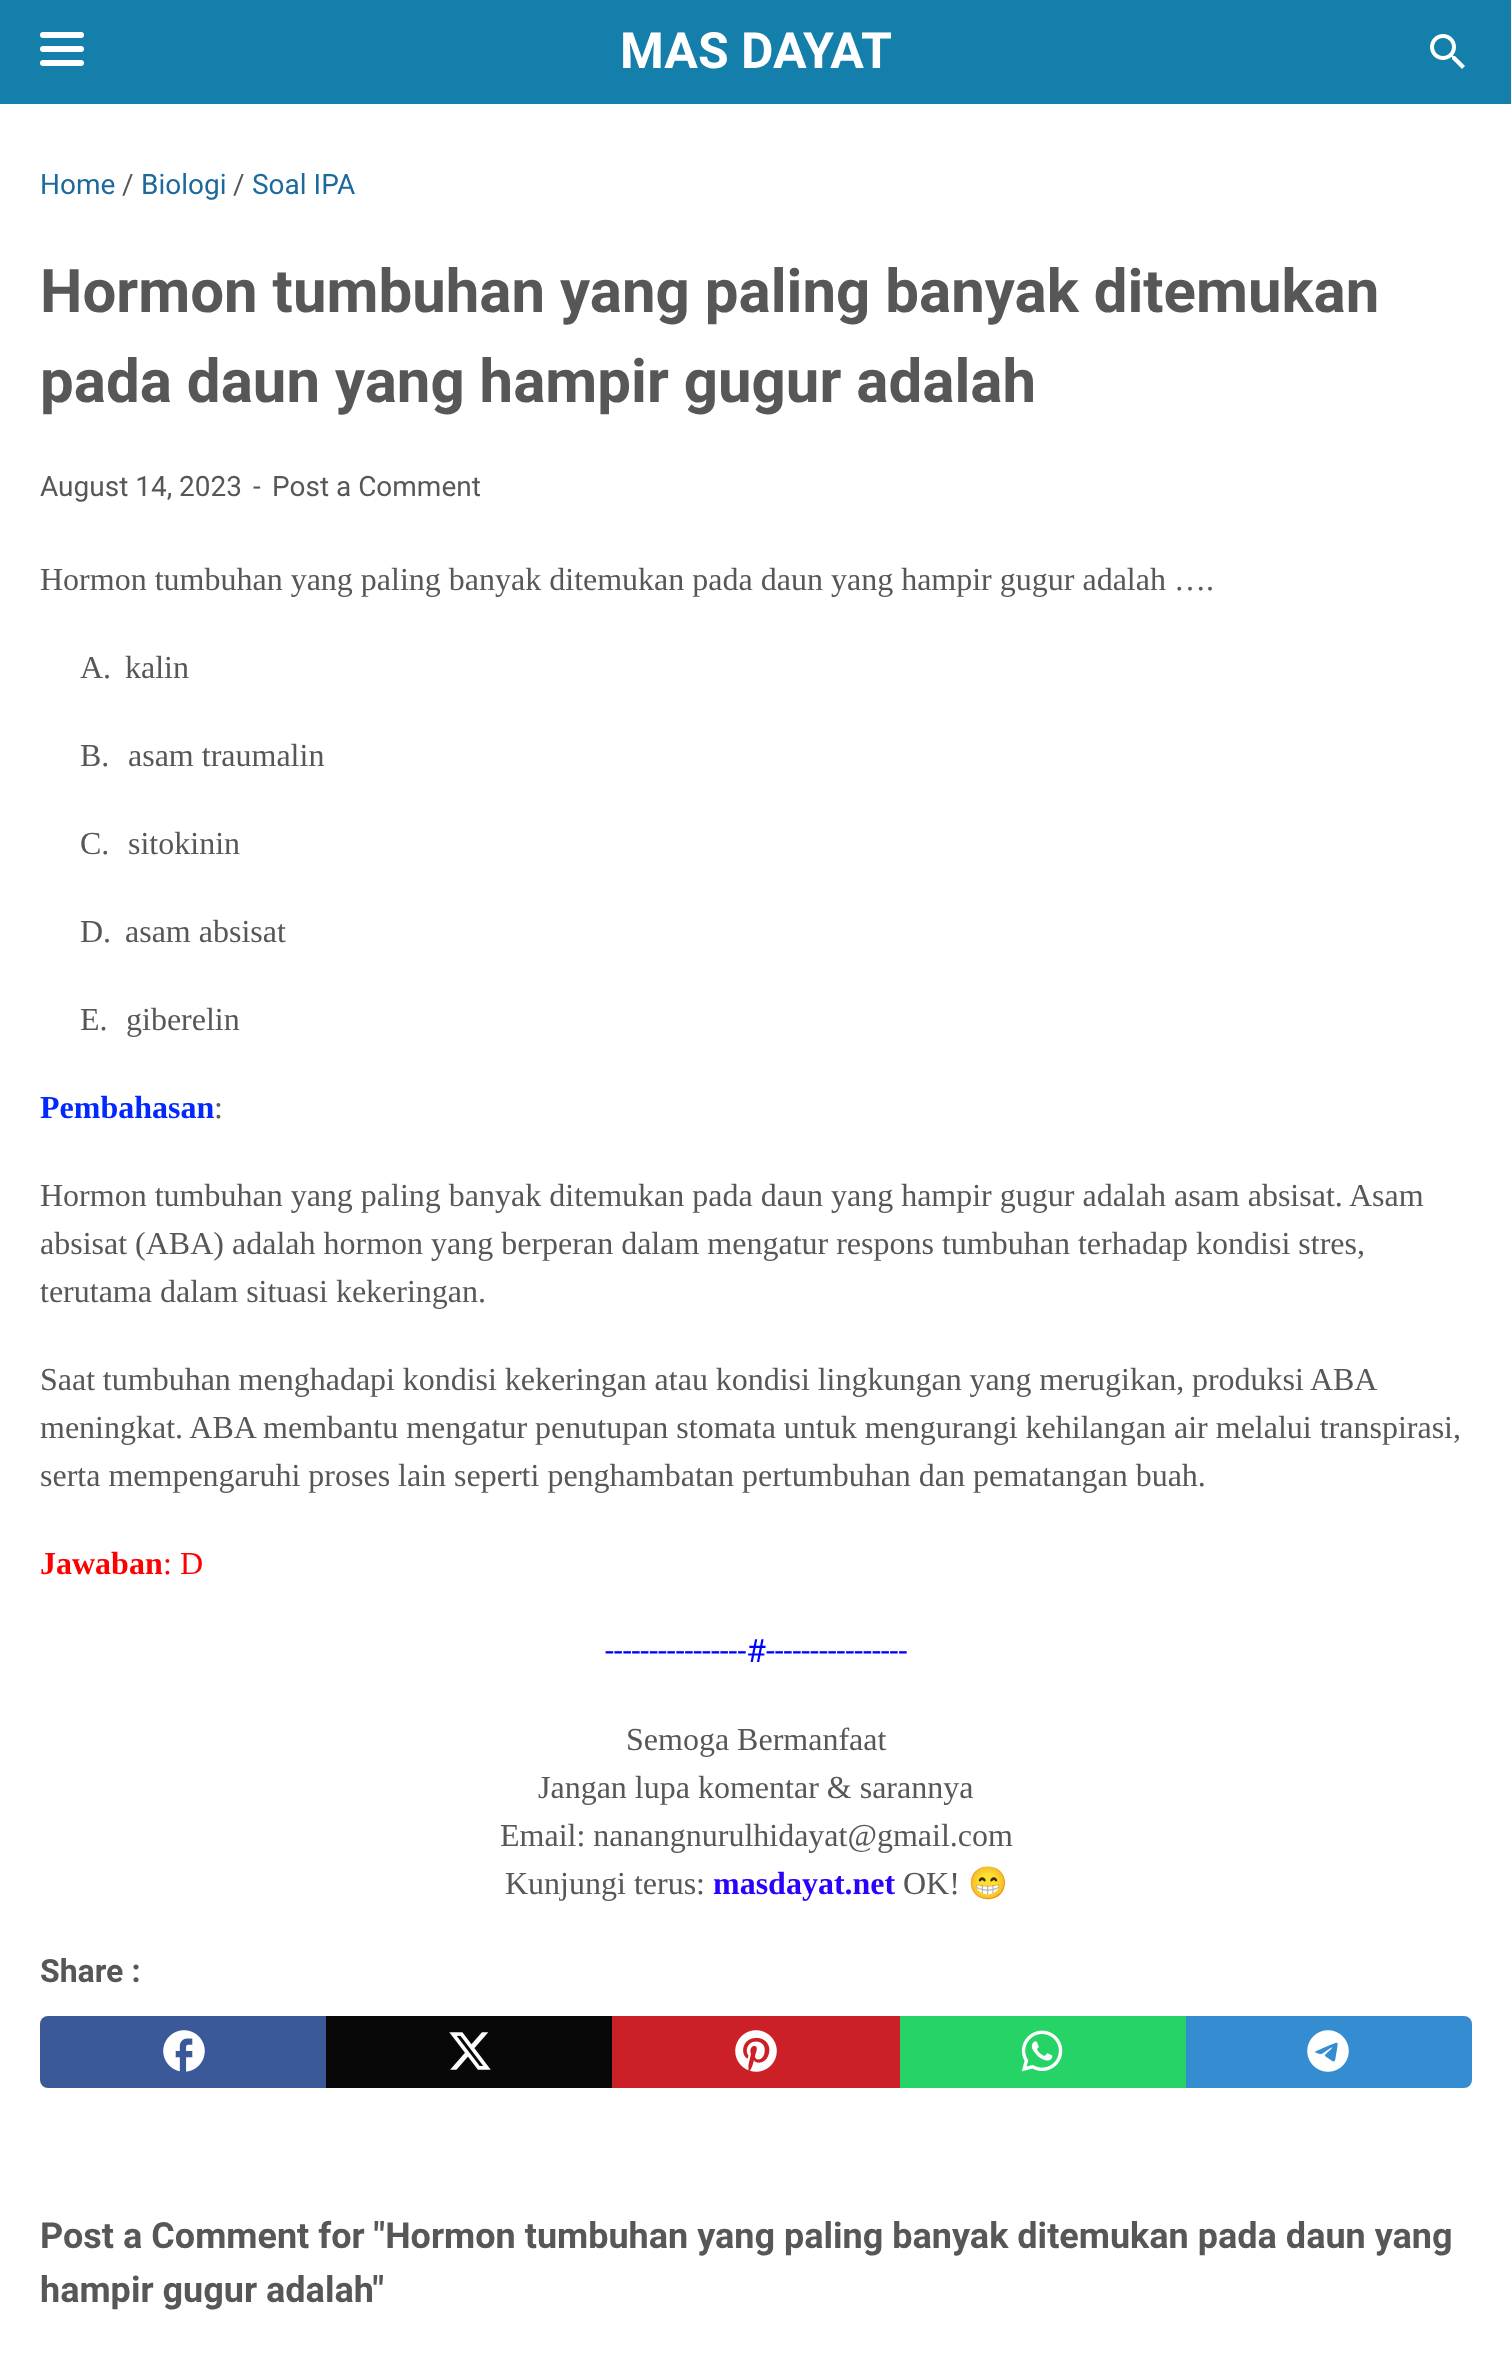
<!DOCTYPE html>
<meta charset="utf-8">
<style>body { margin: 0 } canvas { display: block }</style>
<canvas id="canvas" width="1511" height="2362"></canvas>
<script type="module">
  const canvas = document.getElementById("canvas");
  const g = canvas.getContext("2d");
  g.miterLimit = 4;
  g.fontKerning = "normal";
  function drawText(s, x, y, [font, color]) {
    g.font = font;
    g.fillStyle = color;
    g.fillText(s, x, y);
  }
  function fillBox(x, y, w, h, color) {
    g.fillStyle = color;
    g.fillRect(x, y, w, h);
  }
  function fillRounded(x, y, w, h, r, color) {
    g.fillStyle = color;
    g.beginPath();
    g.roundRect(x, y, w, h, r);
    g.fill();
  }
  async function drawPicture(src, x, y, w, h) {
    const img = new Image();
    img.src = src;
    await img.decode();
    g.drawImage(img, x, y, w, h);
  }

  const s1 = ["bold 50px Roboto", "#FFFFFF"];
  const s2 = ["28px Roboto", "#1B699D"];
  const s3 = ["28px Roboto", "#575757"];
  const s4 = ["bold 60px Roboto", "#575757"];
  const s5 = ["32px Liberation Serif", "#575757"];
  const s6 = ["bold 32px Liberation Serif", "#0028FF"];
  const s7 = ["bold 32px Liberation Serif", "#FF0000"];
  const s8 = ["32px Liberation Serif", "#FF0000"];
  const s9 = ["32px Roboto", "#0000FF"];
  const s10 = ["bold 32px Liberation Serif", "#2B00FE"];
  const s11 = ["32px Noto Color Emoji", "#575757"];
  const s12 = ["bold 32px Roboto", "#575757"];
  const s13 = ["bold 36px Roboto", "#575757"];

  fillBox(0, 0, 1511, 2362, "#FFFFFF");
  fillBox(0, 0, 1511, 104, "#137FAA");
  fillRounded(40, 32, 44, 6, 3, "#FFFFFF");
  fillRounded(40, 46, 44, 6, 3, "#FFFFFF");
  fillRounded(40, 60, 44, 6, 3, "#FFFFFF");
  drawText("MAS DAYAT", 620, 68, s1);
  await drawPicture("pic1.png", 1430, 34, 35, 35);
  drawText("Home", 40, 194, s2);
  drawText("/", 122, 194, s3);
  drawText("Biologi", 141, 194, s2);
  drawText("/", 233, 194, s3);
  drawText("Soal IPA", 252, 194, s2);
  drawText("Hormon tumbuhan yang paling banyak ditemukan", 40, 312, s4);
  drawText("pada daun yang hampir gugur adalah", 40, 402, s4);
  drawText("August 14, 2023", 40, 496, s3);
  drawText("-", 253, 496, s3);
  drawText("Post a Comment", 272, 496, s3);
  drawText("Hormon tumbuhan yang paling banyak ditemukan pada daun yang hampir gugur adalah ….", 40, 590, s5);
  drawText("A.", 80, 678, s5);
  drawText("kalin", 125, 678, s5);
  drawText("B.", 80, 766, s5);
  drawText("asam traumalin", 128, 766, s5);
  drawText("C.", 80, 854, s5);
  drawText("sitokinin", 128, 854, s5);
  drawText("D.", 80, 942, s5);
  drawText("asam absisat", 125, 942, s5);
  drawText("E.", 80, 1030, s5);
  drawText("giberelin", 126, 1030, s5);
  drawText("Pembahasan", 40, 1118, s6);
  drawText(":", 214, 1118, s5);
  drawText("Hormon tumbuhan yang paling banyak ditemukan pada daun yang hampir gugur adalah asam absisat. Asam", 40, 1206, s5);
  drawText("absisat (ABA) adalah hormon yang berperan dalam mengatur respons tumbuhan terhadap kondisi stres,", 40, 1254, s5);
  drawText("terutama dalam situasi kekeringan.", 40, 1302, s5);
  g.wordSpacing = "-0.25px";
  drawText("Saat tumbuhan menghadapi kondisi kekeringan atau kondisi lingkungan yang merugikan, produksi ABA", 40, 1390, s5);
  g.wordSpacing = "0px";
  drawText("meningkat. ABA membantu mengatur penutupan stomata untuk mengurangi kehilangan air melalui transpirasi,", 40, 1438, s5);
  drawText("serta mempengaruhi proses lain seperti penghambatan pertumbuhan dan pematangan buah.", 40, 1486, s5);
  drawText("Jawaban", 40, 1574, s7);
  drawText(": D", 163, 1574, s8);
  drawText("----------------#----------------", 605, 1662, s9);
  drawText("Semoga Bermanfaat", 626, 1750, s5);
  drawText("Jangan lupa komentar & sarannya", 538, 1798, s5);
  drawText("Email: nanangnurulhidayat@gmail.com", 500, 1846, s5);
  drawText("Kunjungi terus:", 505, 1894, s5);
  drawText("masdayat.net", 713, 1894, s10);
  drawText("OK!", 903, 1894, s5);
  drawText("😁", 968, 1894, s11);
  drawText("Share :", 40, 1982, s12);
  g.fillStyle = "#3B5998";
  g.beginPath();
  g.roundRect(40, 2016, 286, 72, [8, 0, 0, 8]);
  g.fill();
  await drawPicture("pic2.png", 163, 2030, 42, 42);
  fillBox(326, 2016, 286, 72, "#080808");
  await drawPicture("pic3.png", 449, 2032, 42, 38);
  fillBox(612, 2016, 288, 72, "#CB2027");
  await drawPicture("pic4.png", 735, 2030, 42, 42);
  fillBox(900, 2016, 286, 72, "#25D366");
  await drawPicture("pic5.png", 1021, 2030, 42, 42);
  g.fillStyle = "#358DD1";
  g.beginPath();
  g.roundRect(1186, 2016, 286, 72, [0, 8, 8, 0]);
  g.fill();
  await drawPicture("pic6.png", 1307, 2030, 42, 42);
  drawText("Post a Comment for \"Hormon tumbuhan yang paling banyak ditemukan pada daun yang", 40, 2248, s13);
  drawText("hampir gugur adalah\"", 40, 2302, s13);
</script>
